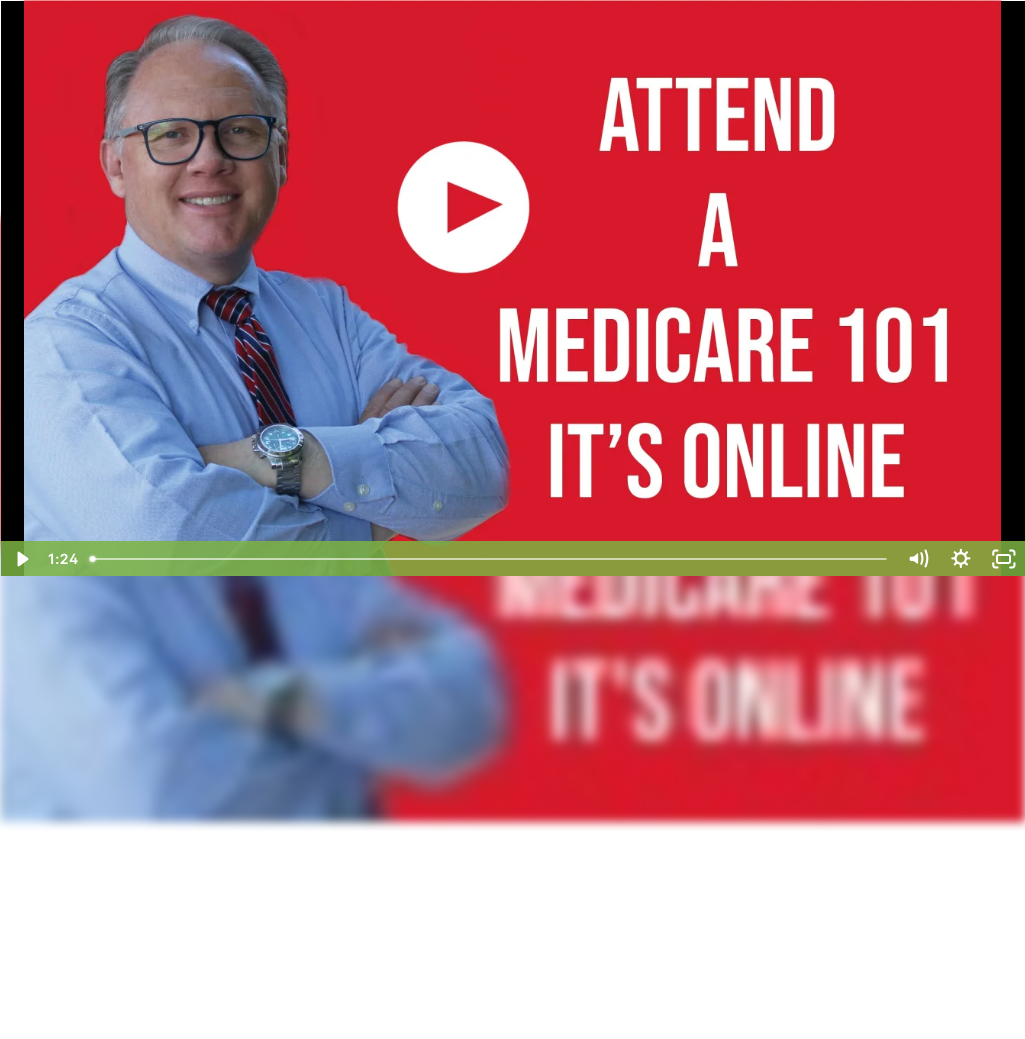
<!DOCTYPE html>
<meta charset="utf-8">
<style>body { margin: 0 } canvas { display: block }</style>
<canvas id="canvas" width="1025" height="1039"></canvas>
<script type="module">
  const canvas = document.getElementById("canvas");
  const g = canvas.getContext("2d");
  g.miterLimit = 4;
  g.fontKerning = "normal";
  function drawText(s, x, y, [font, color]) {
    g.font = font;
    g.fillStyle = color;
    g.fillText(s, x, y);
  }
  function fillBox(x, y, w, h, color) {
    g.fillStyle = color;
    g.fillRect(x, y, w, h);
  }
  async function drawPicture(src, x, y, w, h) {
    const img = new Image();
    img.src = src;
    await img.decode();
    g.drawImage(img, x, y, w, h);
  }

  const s1 = ["600 14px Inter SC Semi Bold", "#FFFFFF"];

  fillBox(0, 0, 1025, 1039, "#FFFFFF");
  await drawPicture("pic1.png", 0, 209, 1025, 622);
  fillBox(1, 1, 1024, 575, "#000000");
  await drawPicture("pic3.png", 18, 0, 989, 1);
  await drawPicture("pic2.png", 24, 0, 977, 576);
  fillBox(1, 541, 1024, 35, "rgba(124, 179, 66, 0.85)");
  await drawPicture("pic4.png", 17, 551, 12, 16);
  g.letterSpacing = "0.5px";
  drawText("1:24", 48, 564, s1);
  await drawPicture("pic5.png", 87, 553, 801, 12);
  await drawPicture("pic6.png", 909, 549, 20, 19);
  await drawPicture("pic7.png", 951, 548, 20, 20);
  await drawPicture("pic8.png", 992, 549, 24, 20);
</script>
